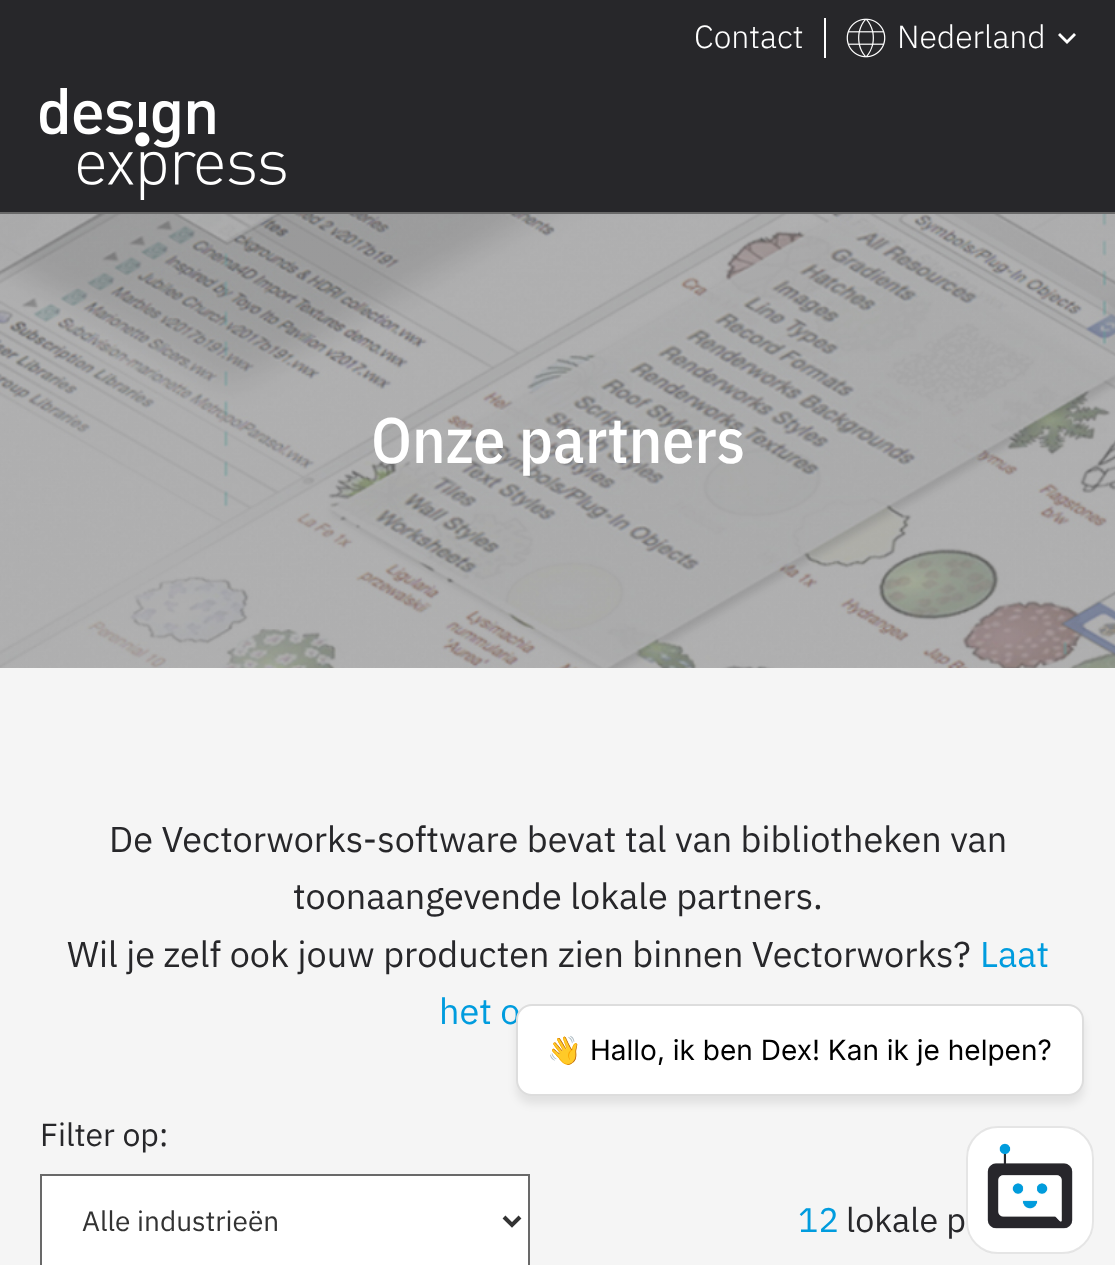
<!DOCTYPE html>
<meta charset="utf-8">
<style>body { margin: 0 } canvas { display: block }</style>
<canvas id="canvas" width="1115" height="1265"></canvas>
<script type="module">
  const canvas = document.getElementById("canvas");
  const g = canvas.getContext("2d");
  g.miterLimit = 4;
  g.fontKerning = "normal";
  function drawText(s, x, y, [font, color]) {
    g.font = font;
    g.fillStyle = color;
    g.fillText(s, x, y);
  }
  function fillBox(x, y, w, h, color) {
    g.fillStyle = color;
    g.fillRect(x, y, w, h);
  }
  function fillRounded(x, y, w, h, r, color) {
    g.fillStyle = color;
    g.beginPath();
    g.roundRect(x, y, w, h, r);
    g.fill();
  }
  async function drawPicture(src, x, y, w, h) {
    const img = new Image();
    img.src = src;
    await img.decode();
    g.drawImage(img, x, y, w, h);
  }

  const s1 = ["300 32px IBM Plex Sans", "#FFFFFF"];
  const s2 = ["500 64px IBM Plex Sans Condensed", "#FFFFFF"];
  const s3 = ["36px IBM Plex Sans", "#27272A"];
  const s4 = ["36px IBM Plex Sans", "#009CDE"];
  const s5 = ["32px IBM Plex Sans", "#27272A"];
  const s6 = ["28px IBM Plex Sans", "#333333"];
  const s7 = ["34px IBM Plex Sans", "#009CDE"];
  const s8 = ["34px IBM Plex Sans", "#27272A"];
  const s9 = ["28px Noto Color Emoji", "#000000"];
  const s10 = ["28px Inter", "#000000"];

  fillBox(0, 0, 1115, 1265, "#27272A");
  drawText("Contact", 694, 48, s1);
  fillBox(824, 18, 2, 40, "#FFFFFF");
  await drawPicture("pic1.png", 846, 18, 40, 40);
  drawText("Nederland", 897, 48, s1);
  g.beginPath();
  g.moveTo(1074, 33);
  g.lineTo(1067, 40);
  g.lineTo(1060, 33);
  g.lineTo(1058, 35);
  g.lineTo(1067, 44);
  g.lineTo(1076, 35);
  g.closePath();
  g.fill();
  fillBox(0, 212, 1115, 2, "#696969");
  await drawPicture("pic2.png", 40, 88, 246, 112);
  await drawPicture("pic3.png", 0, 214, 1115, 454);
  drawText("Onze partners", 371, 463, s2);
  fillBox(0, 668, 1115, 597, "#F5F5F5");
  drawText("De Vectorworks-software bevat tal van bibliotheken van", 109, 852, s3);
  drawText("toonaangevende lokale partners.", 293, 909, s3);
  drawText("Wil je zelf ook jouw producten zien binnen Vectorworks?", 67, 967, s3);
  drawText("Laat", 980, 967, s4);
  drawText("het o", 439, 1024, s4);
  drawText("Filter op:", 40, 1146, s5);
  g.fillStyle = "#FFFFFF";
  g.beginPath();
  g.rect(41, 1175, 488, 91);
  g.fill();
  g.strokeStyle = "#696969";
  g.lineWidth = 2;
  g.stroke();
  g.beginPath();
  g.moveTo(504, 1217);
  g.lineTo(512, 1225);
  g.lineTo(520, 1217);
  g.strokeStyle = "#333333";
  g.lineWidth = 4;
  g.stroke();
  drawText("Alle industrieën", 82, 1231, s6);
  drawText("12", 798, 1232, s7);
  drawText("lokale p", 846, 1232, s8);
  g.fillStyle = "rgba(0, 0, 0, 0.08)";
  g.filter = "blur(4px)";
  g.beginPath();
  g.roundRect(516, 1012, 568, 92, 16);
  g.fill();
  g.filter = "none";
  g.fillStyle = "#FFFFFF";
  g.beginPath();
  g.roundRect(517, 1005, 566, 90, 15);
  g.fill();
  g.strokeStyle = "#DDDDDD";
  g.lineWidth = 2;
  g.stroke();
  drawText("👋", 547, 1060, s9);
  drawText("Hallo, ik ben Dex! Kan ik je helpen?", 590, 1060, s10);
  fillRounded(966, 1126, 128, 128, 32, "#FFFFFF");
  g.beginPath();
  g.roundRect(967, 1127, 126, 126, 31);
  g.strokeStyle = "rgba(0, 0, 0, 0.1)";
  g.stroke();
  await drawPicture("pic4.png", 987, 1143, 86, 86);
</script>
